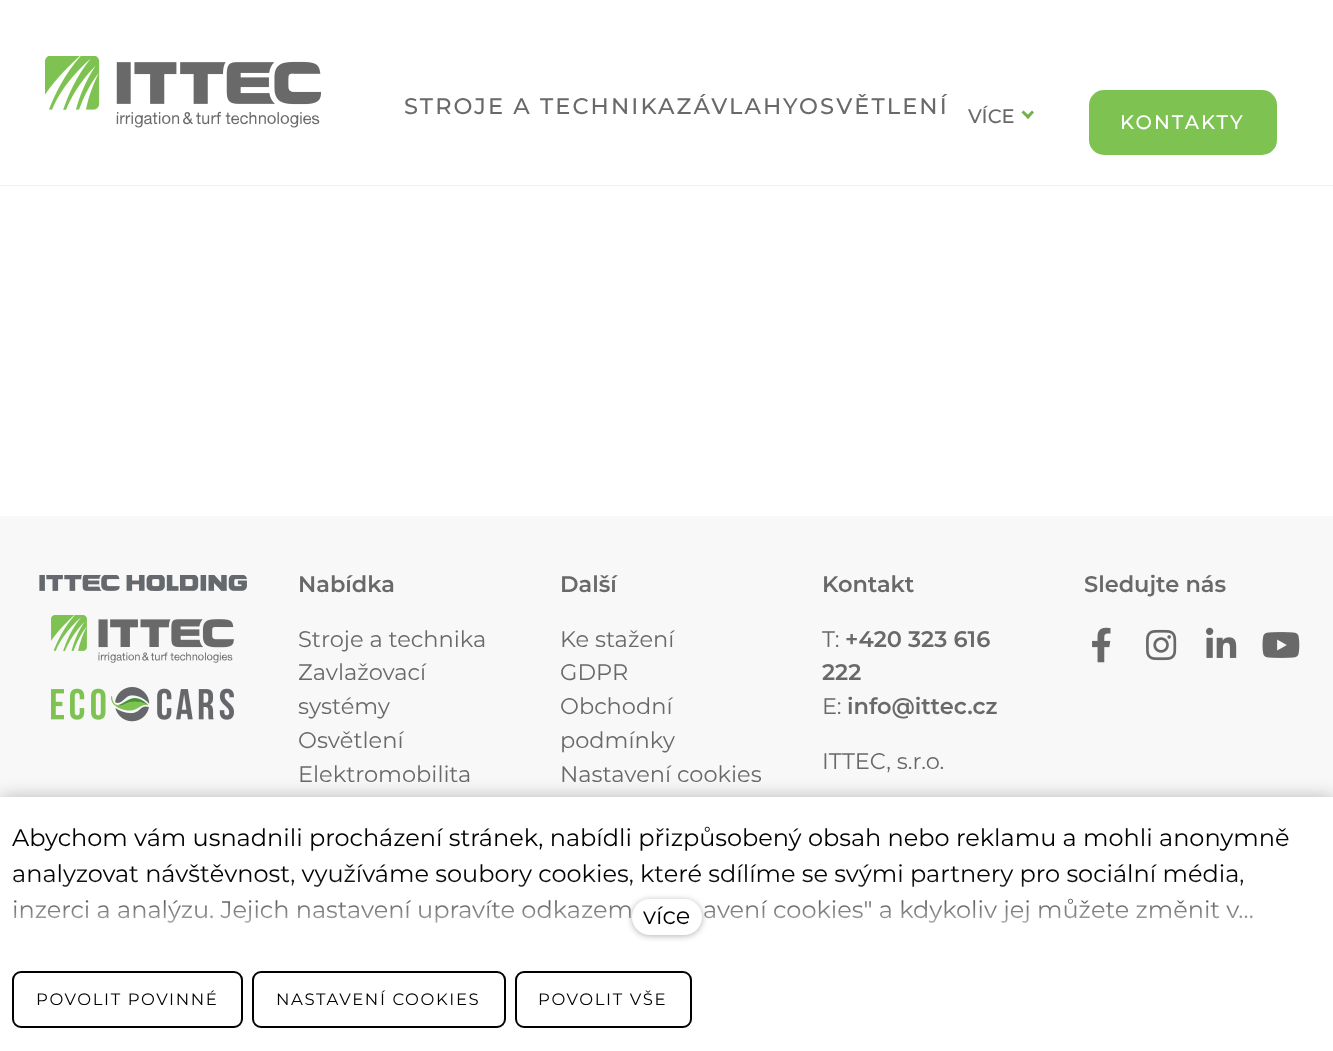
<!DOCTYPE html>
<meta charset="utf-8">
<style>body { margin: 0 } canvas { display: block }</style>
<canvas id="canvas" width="1333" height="1051"></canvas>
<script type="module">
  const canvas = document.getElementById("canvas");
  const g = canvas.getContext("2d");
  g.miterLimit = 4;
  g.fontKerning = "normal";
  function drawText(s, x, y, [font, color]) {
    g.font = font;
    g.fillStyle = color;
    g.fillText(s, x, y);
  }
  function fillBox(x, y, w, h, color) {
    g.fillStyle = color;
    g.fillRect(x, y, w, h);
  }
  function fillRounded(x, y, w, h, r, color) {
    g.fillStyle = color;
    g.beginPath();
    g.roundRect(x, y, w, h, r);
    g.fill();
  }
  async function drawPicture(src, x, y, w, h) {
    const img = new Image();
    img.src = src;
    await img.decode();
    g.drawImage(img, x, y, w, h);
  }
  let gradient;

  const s1 = ["500 22.5px Montserrat", "#696969"];
  const s2 = ["500 19.5px Montserrat", "#696969"];
  const s3 = ["500 19.5px Montserrat", "#FFFFFF"];
  const s4 = ["600 22.5px Montserrat", "#696969"];
  const s5 = ["22.5px Montserrat", "#696969"];
  const s6 = ["24px Montserrat", "#000000"];
  const s7 = ["16.5px Montserrat", "#000000"];

  fillBox(0, 0, 1333, 1051, "#FFFFFF");
  g.fillStyle = "#F0F0F0";
  g.beginPath();
  g.moveTo(0, 184);
  g.lineTo(0, 186);
  g.lineTo(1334, 186);
  g.lineTo(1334, 2);
  g.lineTo(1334, 184);
  g.closePath();
  g.fill();
  fillBox(0, 184, 1333, 1, "#FFFFFF");
  await drawPicture("pic1.png", 45, 56, 276, 72);
  g.letterSpacing = "2.1px";
  drawText("STROJE A TECHNIKAZÁVLAHYOSVĚTLENÍ", 404, 114, s1);
  g.letterSpacing = "0px";
  drawText("VÍCE", 968, 123, s2);
  g.fillStyle = "#71B04A";
  g.beginPath();
  g.moveTo(1032, 110.5);
  g.lineTo(1034, 112.5);
  g.lineTo(1028, 119);
  g.lineTo(1026, 116.5);
  g.closePath();
  g.fill();
  g.beginPath();
  g.moveTo(1023.5, 110.5);
  g.lineTo(1030, 116.5);
  g.lineTo(1028, 119);
  g.lineTo(1021.5, 112.5);
  g.closePath();
  g.fill();
  fillRounded(1089, 90, 188, 65, 15, "#7EC352");
  g.letterSpacing = "2.1px";
  drawText("KONTAKTY", 1120, 129, s3);
  fillBox(0, 516, 1333, 281, "#F8F8F8");
  await drawPicture("pic2.png", 39, 575, 208, 16);
  await drawPicture("pic3.png", 51, 615, 183, 48);
  await drawPicture("pic4.png", 51, 687, 183, 35);
  g.letterSpacing = "0px";
  drawText("Nabídka", 298, 592, s4);
  drawText("Stroje a technika", 298, 647, s5);
  drawText("Zavlažovací", 298, 680, s5);
  drawText("systémy", 298, 714, s5);
  drawText("Osvětlení", 298, 748, s5);
  drawText("Elektromobilita", 298, 782, s5);
  drawText("Další", 560, 592, s4);
  drawText("Ke stažení", 560, 647, s5);
  drawText("GDPR", 560, 680, s5);
  drawText("Obchodní", 560, 714, s5);
  drawText("podmínky", 560, 748, s5);
  drawText("Nastavení cookies", 560, 782, s5);
  drawText("Kontakt", 822, 592, s4);
  drawText("T:", 822, 647, s5);
  drawText("+420 323 616", 845, 647, s4);
  drawText("222", 822, 680, s4);
  drawText("E:", 822, 714, s5);
  drawText("info@ittec.cz", 847, 714, s4);
  drawText("ITTEC, s.r.o.", 822, 769, s5);
  drawText("Sledujte nás", 1084, 592, s4);
  await drawPicture("pic5.png", 1092, 627, 19, 36);
  await drawPicture("pic6.png", 1146, 629, 31, 32);
  await drawPicture("pic7.png", 1206, 627, 31, 31);
  await drawPicture("pic8.png", 1262, 632, 38, 26);
  g.fillStyle = "rgba(0, 0, 0, 0.25)";
  g.filter = "blur(9px)";
  g.beginPath();
  g.rect(0, 797, 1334, 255);
  g.fill();
  g.filter = "none";
  fillBox(0, 797, 1333, 254, "#FFFFFF");
  drawText("Abychom vám usnadnili procházení stránek, nabídli přizpůsobený obsah nebo reklamu a mohli anonymně", 12, 846, s6);
  drawText("analyzovat návštěvnost, využíváme soubory cookies, které sdílíme se svými partnery pro sociální média,", 12, 882, s6);
  drawText("inzerci a analýzu. Jejich nastavení upravíte odkazem", 12, 918, s6);
  drawText("avení cookies\" a kdykoliv jej můžete změnit v…", 703, 918, s6);
  gradient = g.createLinearGradient(667, 947, 667, 875);
  gradient.addColorStop(0, "#FFFFFF");
  gradient.addColorStop(1, "rgba(255, 255, 255, 0)");
  g.fillStyle = gradient;
  g.fillRect(13, 877, 1241, 46);
  g.fillStyle = "rgba(0, 0, 0, 0.3)";
  g.filter = "blur(3px)";
  g.beginPath();
  g.roundRect(632, 900, 70, 36, 18);
  g.fill();
  g.filter = "none";
  fillRounded(632, 899, 70, 36, 18, "#FFFFFF");
  drawText("více", 643, 924, s6);
  g.beginPath();
  g.roundRect(13, 972, 229, 55, 8);
  g.strokeStyle = "#000000";
  g.lineWidth = 2;
  g.stroke();
  g.letterSpacing = "1.6px";
  drawText("POVOLIT POVINNÉ", 36, 1005, s7);
  g.beginPath();
  g.roundRect(253, 972, 252, 55, 8);
  g.stroke();
  drawText("NASTAVENÍ COOKIES", 276, 1005, s7);
  g.beginPath();
  g.roundRect(516, 972, 175, 55, 8);
  g.stroke();
  drawText("POVOLIT VŠE", 538, 1005, s7);
</script>
